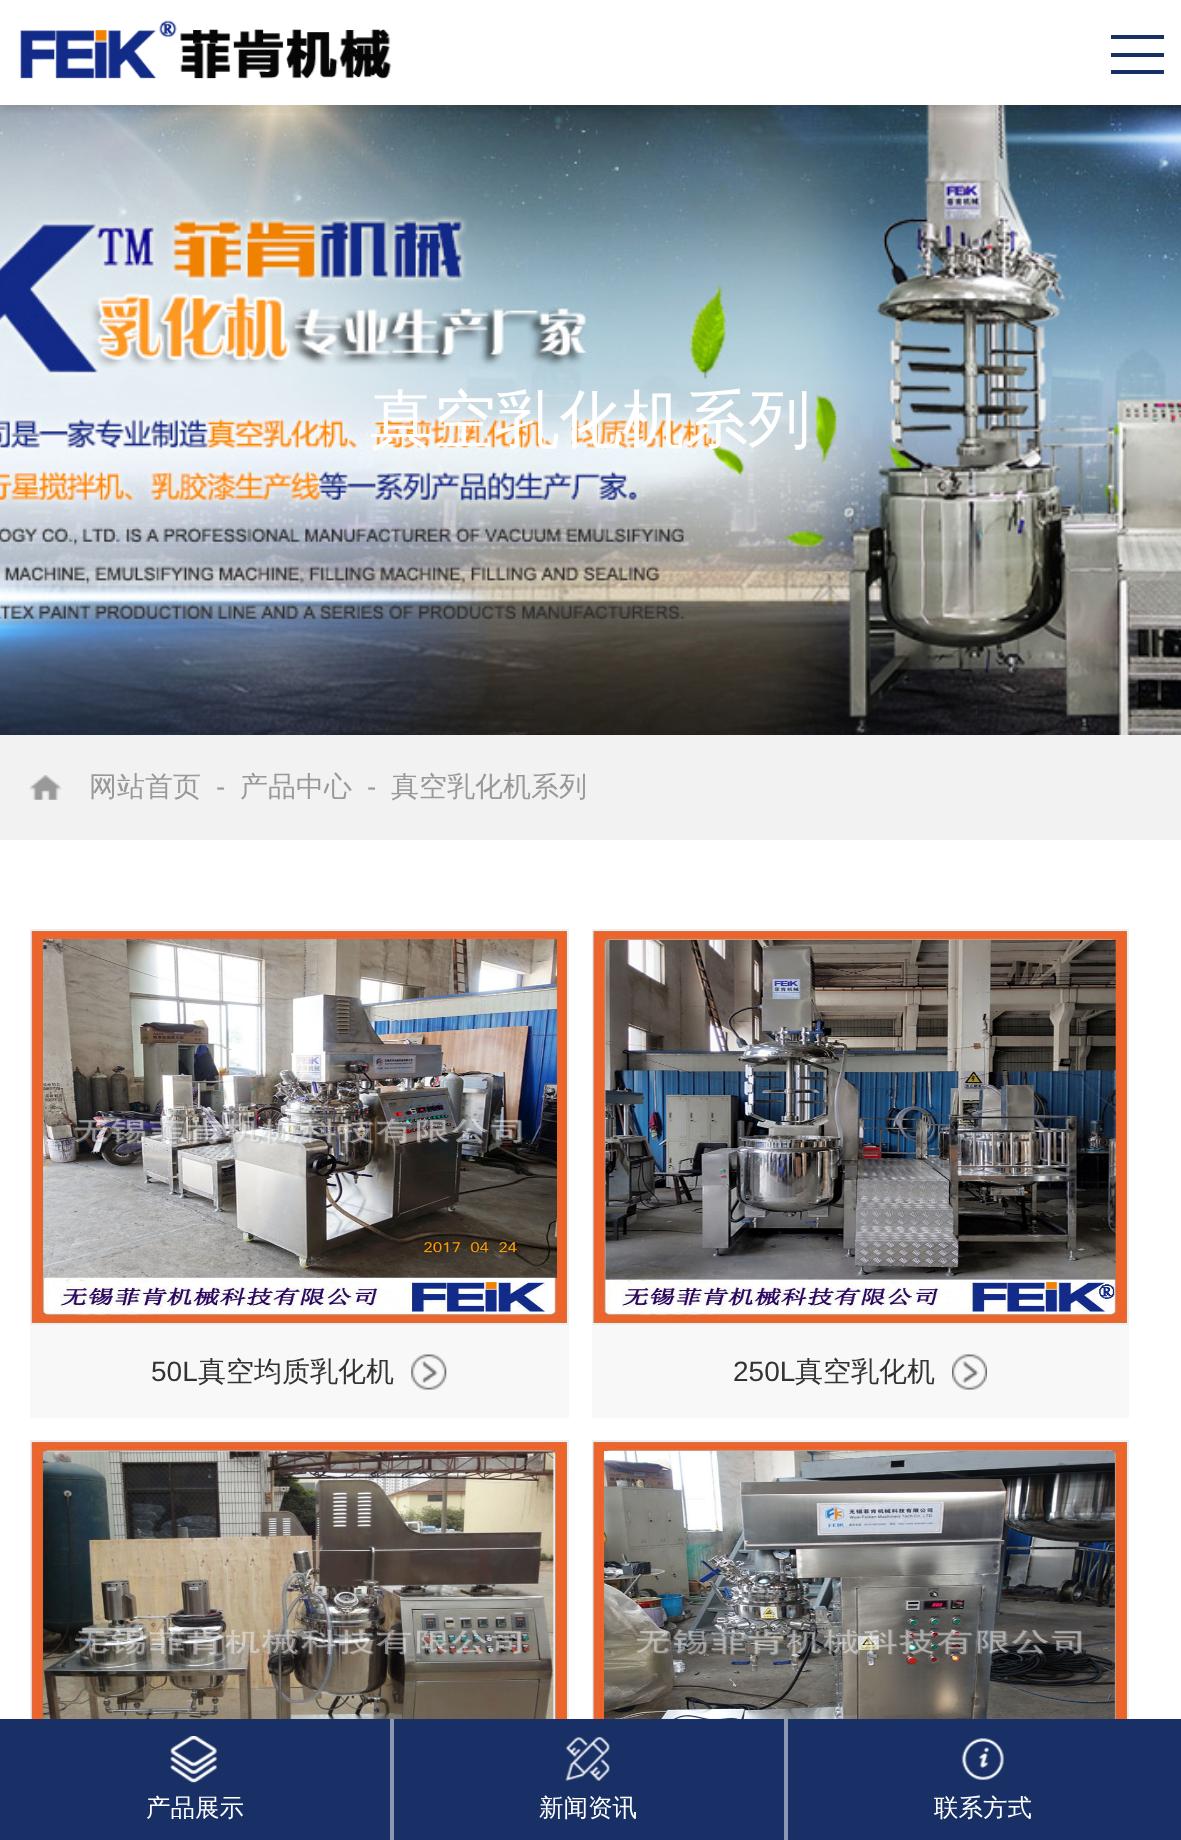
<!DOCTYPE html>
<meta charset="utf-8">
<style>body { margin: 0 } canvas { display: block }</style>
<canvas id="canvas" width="1181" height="1840"></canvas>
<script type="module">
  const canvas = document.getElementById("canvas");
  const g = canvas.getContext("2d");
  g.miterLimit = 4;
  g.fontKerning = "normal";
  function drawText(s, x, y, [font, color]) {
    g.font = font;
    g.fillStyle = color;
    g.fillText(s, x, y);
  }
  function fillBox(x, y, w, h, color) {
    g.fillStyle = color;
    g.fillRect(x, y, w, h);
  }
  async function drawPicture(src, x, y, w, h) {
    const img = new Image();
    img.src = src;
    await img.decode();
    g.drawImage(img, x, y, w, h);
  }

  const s1 = ["500 63px WenQuanYi Zen Hei", "#FFFFFF"];
  const s2 = ["500 28px WenQuanYi Zen Hei", "#999999"];
  const s3 = ["28px Liberation Sans", "#999999"];
  const s4 = ["28px Liberation Sans", "#333333"];
  const s5 = ["500 28px WenQuanYi Zen Hei", "#333333"];
  const s6 = ["500 24.5px WenQuanYi Zen Hei", "#FFFFFF"];

  fillBox(0, 0, 1181, 1840, "#FFFFFF");
  await drawPicture("pic2.png", 0, 105, 1181, 630);
  g.save();
  g.beginPath();
  g.rect(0, 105, 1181, 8);
  g.clip();
  g.fillStyle = "rgba(0, 0, 0, 0.1)";
  g.filter = "blur(4.5px)";
  g.beginPath();
  g.rect(0, 4, 1181, 105);
  g.fill();
  g.filter = "none";
  g.restore();
  await drawPicture("pic1.png", 20, 20, 372, 59);
  fillBox(1111, 35, 53, 4, "#193066");
  fillBox(1111, 53, 53, 4, "#193066");
  fillBox(1111, 70, 53, 4, "#193066");
  drawText("真空乳化机系列", 370, 441, s1);
  fillBox(0, 735, 1181, 105, "#F2F2F2");
  await drawPicture("pic3.png", 29, 775, 33, 25);
  drawText("网站首页", 89, 796, s2);
  drawText("-", 216, 796, s3);
  drawText("产品中心", 240, 796, s2);
  drawText("-", 367, 796, s3);
  drawText("真空乳化机系列", 391, 796, s2);
  fillBox(30, 1325, 539, 93, "#F8F8F8");
  g.strokeStyle = "#EEEEEE";
  g.lineWidth = 2;
  g.strokeRect(31, 930, 537, 394);
  await drawPicture("pic4.png", 31, 931, 536, 392);
  drawText("50L", 151, 1381, s4);
  drawText("真空均质乳化机", 198, 1381, s5);
  await drawPicture("pic5.png", 411, 1354, 36, 36);
  fillBox(592, 1325, 537, 93, "#F8F8F8");
  g.strokeRect(593, 930, 535, 394);
  await drawPicture("pic6.png", 593, 931, 534, 392);
  drawText("250L", 733, 1381, s4);
  drawText("真空乳化机", 795, 1381, s5);
  await drawPicture("pic7.png", 952, 1354, 35, 36);
  g.strokeRect(31, 1441, 537, 394);
  await drawPicture("pic8.png", 31, 1442, 536, 277);
  g.strokeRect(593, 1441, 535, 394);
  await drawPicture("pic9.png", 593, 1442, 534, 277);
  fillBox(0, 1719, 1181, 121, "#193066");
  fillBox(390, 1719, 4, 121, "#8C98B3");
  await drawPicture("pic10.png", 170, 1736, 47, 47);
  drawText("产品展示", 146, 1816, s6);
  fillBox(784, 1719, 4, 121, "#8C98B3");
  await drawPicture("pic11.png", 565, 1737, 45, 44);
  drawText("新闻资讯", 539, 1816, s6);
  await drawPicture("pic12.png", 961, 1738, 43, 42);
  drawText("联系方式", 934, 1816, s6);
</script>
